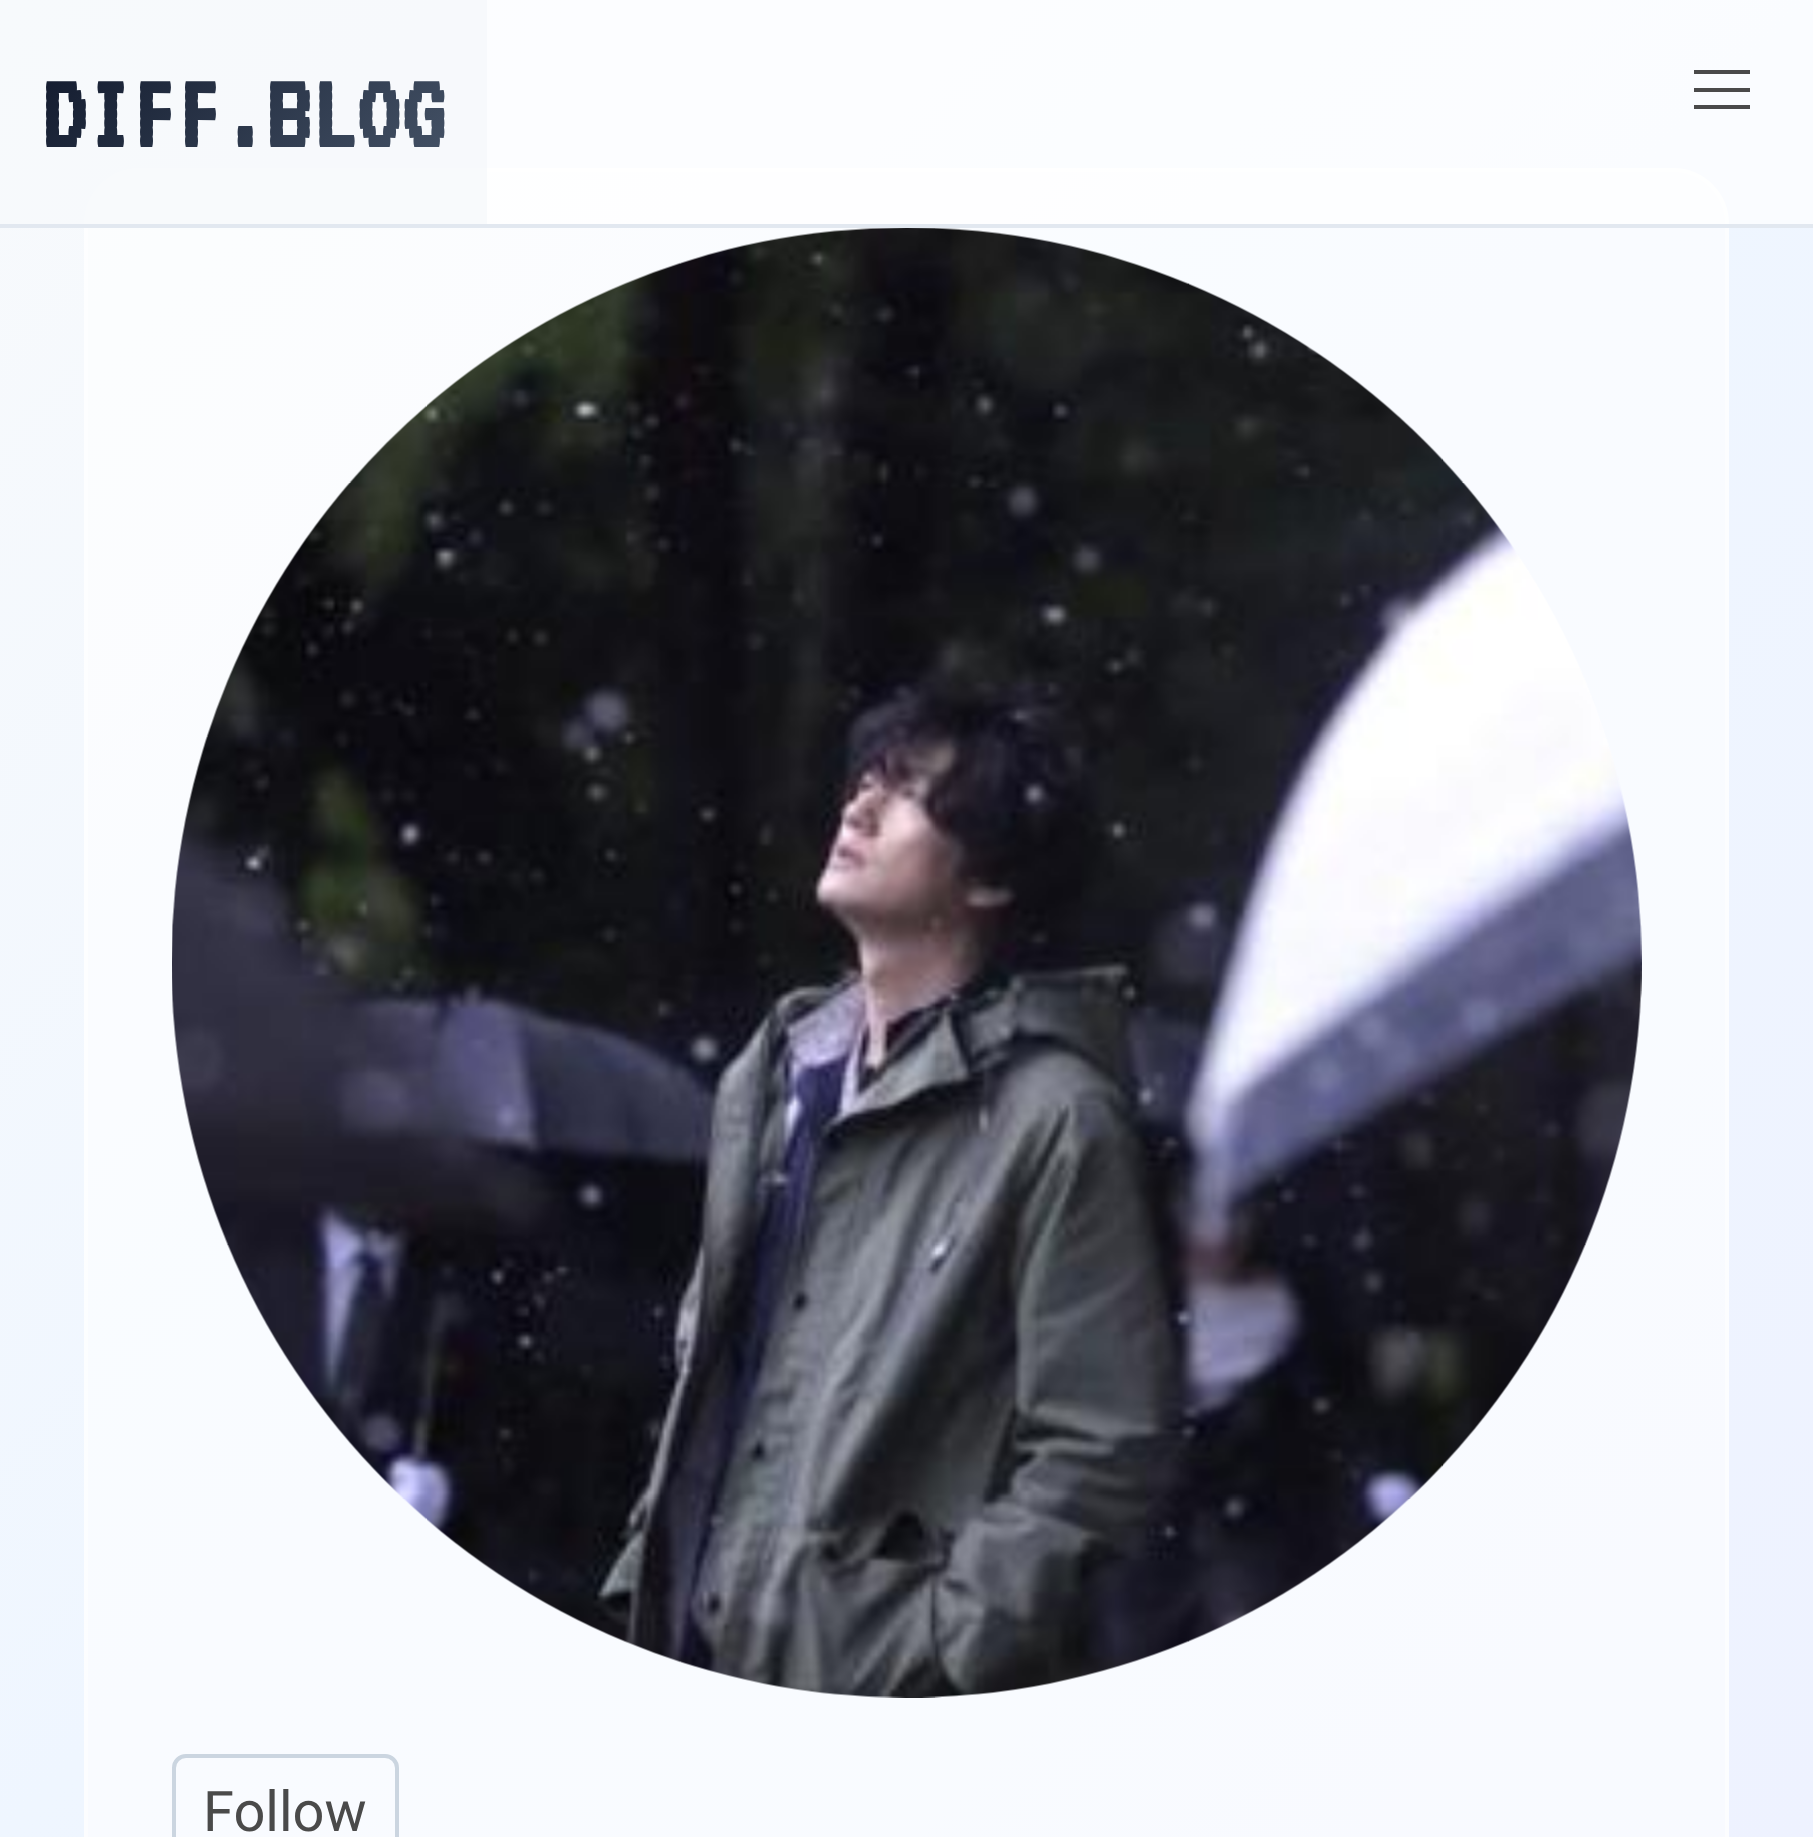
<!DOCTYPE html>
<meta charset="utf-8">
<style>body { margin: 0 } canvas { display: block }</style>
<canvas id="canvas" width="1813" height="1837"></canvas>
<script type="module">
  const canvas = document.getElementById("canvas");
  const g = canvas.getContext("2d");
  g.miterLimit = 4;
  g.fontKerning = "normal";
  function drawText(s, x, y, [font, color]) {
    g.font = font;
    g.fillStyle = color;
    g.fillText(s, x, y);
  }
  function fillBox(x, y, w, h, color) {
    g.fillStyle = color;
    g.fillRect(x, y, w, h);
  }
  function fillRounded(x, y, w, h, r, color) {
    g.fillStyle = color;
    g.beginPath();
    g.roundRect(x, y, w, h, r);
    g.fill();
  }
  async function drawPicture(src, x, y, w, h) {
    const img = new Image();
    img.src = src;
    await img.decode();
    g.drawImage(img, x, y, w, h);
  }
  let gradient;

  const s1 = ["56px Roboto", "#4A4A4A"];

  fillBox(0, 0, 1813, 1837, "#FFFFFF");
  gradient = g.createLinearGradient(-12, 12, 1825, 1825);
  gradient.addColorStop(0, "#F8FAFC");
  gradient.addColorStop(0.5, "#EFF6FF");
  gradient.addColorStop(1, "#EEF2FF");
  g.fillStyle = gradient;
  g.fillRect(0, 0, 1813, 1837);
  fillRounded(84, 168, 1645, 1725, 56, "rgba(255, 255, 255, 0.6)");
  g.beginPath();
  g.roundRect(86, 170, 1641, 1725, 54);
  g.strokeStyle = "rgba(255, 255, 255, 0.5)";
  g.lineWidth = 4;
  g.stroke();
  fillBox(0, 0, 1813, 224, "rgba(255, 255, 255, 0.7)");
  fillBox(0, 224, 1813, 4, "#E2E8F0");
  fillBox(0, 0, 487, 224, "rgba(241, 245, 249, 0.5)");
  g.font = "bold 112px 'VT323'";
  gradient = g.createLinearGradient(101, -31, 386, 255);
  gradient.addColorStop(0, "#0F172A");
  gradient.addColorStop(1, "#475569");
  g.fillStyle = gradient;
  g.fillText("DIFF.BLOG", 42, 147);
  fillBox(1694, 70, 56, 4, "#4A4A4A");
  fillBox(1694, 88, 56, 4, "#4A4A4A");
  fillBox(1694, 105, 56, 4, "#4A4A4A");
  await drawPicture("pic1.png", 172, 228, 1470, 1470);
  g.beginPath();
  g.roundRect(174, 1756, 223, 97, 12);
  g.strokeStyle = "#CBD5E0";
  g.stroke();
  drawText("Follow", 203, 1831, s1);
</script>
